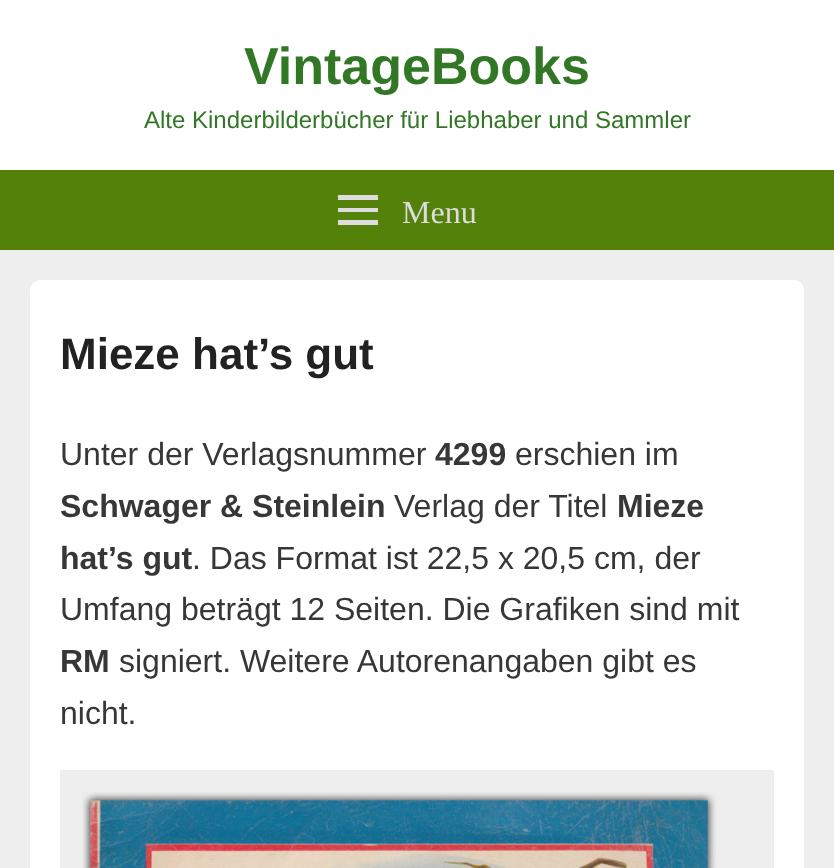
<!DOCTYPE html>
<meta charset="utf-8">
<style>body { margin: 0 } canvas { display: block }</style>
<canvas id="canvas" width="834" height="868"></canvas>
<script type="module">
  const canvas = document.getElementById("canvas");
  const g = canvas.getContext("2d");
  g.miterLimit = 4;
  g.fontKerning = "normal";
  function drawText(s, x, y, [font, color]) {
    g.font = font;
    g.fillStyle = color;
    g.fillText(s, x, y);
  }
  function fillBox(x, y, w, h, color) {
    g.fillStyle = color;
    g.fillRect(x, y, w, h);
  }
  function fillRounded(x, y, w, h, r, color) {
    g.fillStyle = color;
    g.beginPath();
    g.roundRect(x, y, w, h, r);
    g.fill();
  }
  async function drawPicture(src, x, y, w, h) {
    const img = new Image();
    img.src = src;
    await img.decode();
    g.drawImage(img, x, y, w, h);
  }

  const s1 = ["bold 52px Liberation Sans", "#317725"];
  const s2 = ["24px Liberation Sans", "#317725"];
  const s3 = ["32px Liberation Serif", "#DDDDDD"];
  const s4 = ["bold 44px Liberation Sans", "#222222"];
  const s5 = ["32px Liberation Sans", "#373737"];
  const s6 = ["bold 32px Liberation Sans", "#373737"];

  fillBox(0, 0, 834, 868, "#EEEEEE");
  fillBox(0, 0, 834, 170, "#FFFFFF");
  drawText("VintageBooks", 244, 84, s1);
  drawText("Alte Kinderbilderbücher für Liebhaber und Sammler", 144, 128, s2);
  fillBox(0, 170, 834, 80, "#53810A");
  g.fillStyle = "#DDDDDD";
  g.beginPath();
  g.moveTo(338, 225);
  g.lineTo(338, 220);
  g.lineTo(378, 220);
  g.lineTo(378, 225);
  g.closePath();
  g.moveTo(338, 195);
  g.lineTo(378, 195);
  g.lineTo(378, 200);
  g.lineTo(338, 200);
  g.closePath();
  g.moveTo(338, 212);
  g.lineTo(338, 208);
  g.lineTo(378, 208);
  g.lineTo(378, 212);
  g.closePath();
  g.fill();
  drawText("Menu", 402, 223, s3);
  fillRounded(30, 280, 774, 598, 10, "#FFFFFF");
  drawText("Mieze hat’s gut", 60, 369, s4);
  drawText("Unter der Verlagsnummer", 60, 465, s5);
  drawText("4299", 435, 465, s6);
  drawText("erschien im", 515, 465, s5);
  drawText("Schwager & Steinlein", 60, 517, s6);
  drawText("Verlag der Titel", 394, 517, s5);
  drawText("Mieze", 617, 517, s6);
  drawText("hat’s gut", 60, 569, s6);
  drawText(". Das Format ist 22,5 x 20,5 cm, der", 192, 569, s5);
  drawText("Umfang beträgt 12 Seiten. Die Grafiken sind mit", 60, 620, s5);
  drawText("RM", 60, 672, s6);
  drawText("signiert. Weitere Autorenangaben gibt es", 119, 672, s5);
  drawText("nicht.", 60, 724, s5);
  fillBox(60, 770, 714, 98, "#EEEEEE");
  await drawPicture("pic1.png", 82, 792, 634, 76);
</script>
